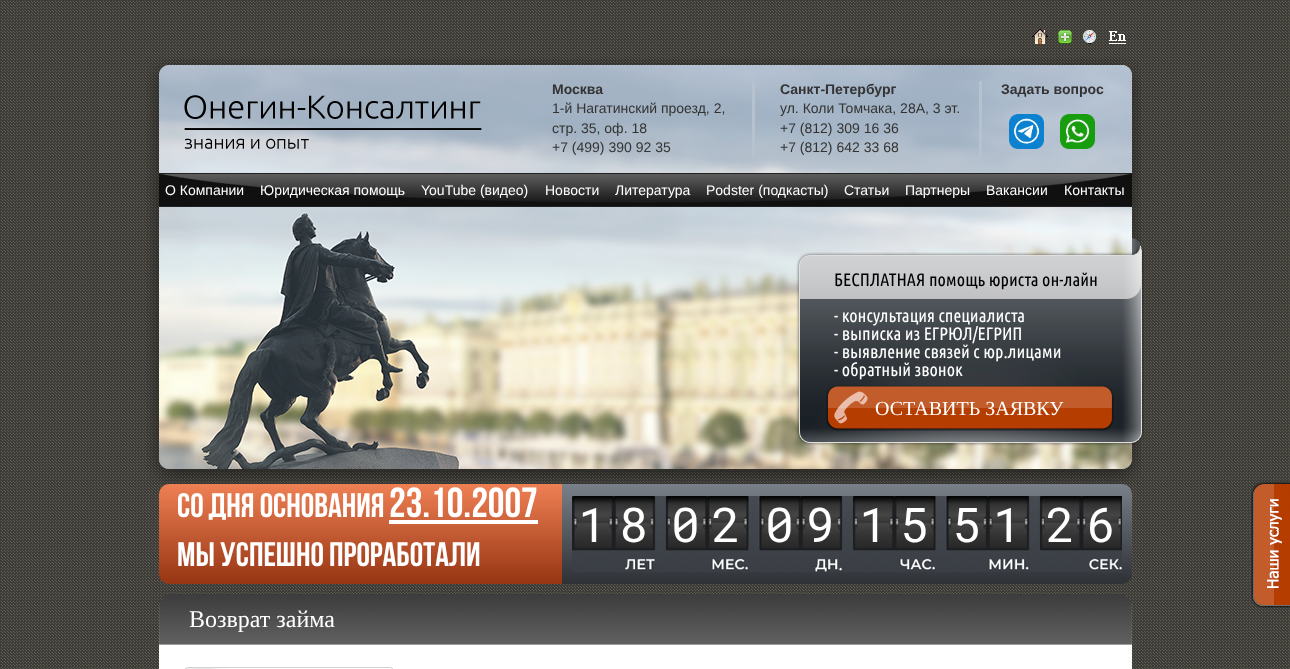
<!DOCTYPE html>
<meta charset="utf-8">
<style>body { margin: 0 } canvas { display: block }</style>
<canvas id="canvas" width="1290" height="669"></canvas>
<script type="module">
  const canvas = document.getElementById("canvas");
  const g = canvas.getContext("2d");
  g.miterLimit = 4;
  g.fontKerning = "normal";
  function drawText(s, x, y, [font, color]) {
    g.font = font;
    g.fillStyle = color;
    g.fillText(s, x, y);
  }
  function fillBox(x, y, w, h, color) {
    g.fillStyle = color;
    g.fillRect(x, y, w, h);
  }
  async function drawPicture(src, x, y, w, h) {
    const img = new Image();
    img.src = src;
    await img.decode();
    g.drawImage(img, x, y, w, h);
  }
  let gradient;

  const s1 = ["bold 14px Liberation Sans", "#333333"];
  const s2 = ["14px Liberation Sans", "#333333"];
  const s3 = ["14px Liberation Sans", "#FFFFFF"];
  const s4 = ["18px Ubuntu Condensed", "#000000"];
  const s5 = ["18px Ubuntu Condensed", "#FFFFFF"];
  const s6 = ["20px Liberation Serif", "#FFFFFF"];
  const s7 = ["34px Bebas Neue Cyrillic", "#FFFFFF"];
  const s8 = ["42px Bebas Neue Cyrillic", "#FFFFFF"];
  const s9 = ["48px Roboto Mono", "#FFFFFF"];
  const s10 = ["24px Liberation Serif", "#FFFFFF"];

  fillBox(0, 0, 1290, 669, "#FFFFFF");
  await drawPicture("pic1.png", 0, 0, 1290, 669);
  await drawPicture("pic2.png", 1032, 29, 16, 15);
  await drawPicture("pic3.png", 1058, 30, 14, 14);
  await drawPicture("pic4.png", 1083, 30, 13, 14);
  await drawPicture("pic5.png", 1109, 31, 17, 13);
  await drawPicture("pic6.png", 146, 58, 998, 426);
  await drawPicture("pic7.png", 184, 95, 298, 54);
  drawText("Москва", 552, 94, s1);
  drawText("1-й Нагатинский проезд, 2,", 552, 113, s2);
  drawText("стр. 35, оф. 18", 552, 133, s2);
  drawText("+7 (499) 390 92 35", 552, 152, s2);
  fillBox(752, 81, 3, 76, "#B6C2CE");
  drawText("Санкт-Петербург", 780, 94, s1);
  drawText("ул. Коли Томчака, 28А, 3 эт.", 780, 113, s2);
  drawText("+7 (812) 309 16 36", 780, 133, s2);
  drawText("+7 (812) 642 33 68", 780, 152, s2);
  fillBox(979, 81, 3, 76, "#B6C2CE");
  drawText("Задать вопрос", 1001, 94, s1);
  await drawPicture("pic8.png", 1009, 114, 35, 35);
  await drawPicture("pic9.png", 1060, 114, 35, 35);
  fillBox(159, 173, 973, 34, "#2E2E2E");
  await drawPicture("pic10.png", 159, 173, 973, 34);
  drawText("О Компании", 165, 195, s3);
  drawText("Юридическая помощь", 260, 195, s3);
  drawText("YouTube (видео)", 421, 195, s3);
  drawText("Новости", 545, 195, s3);
  drawText("Литература", 615, 195, s3);
  drawText("Podster (подкасты)", 706, 195, s3);
  drawText("Статьи", 844, 195, s3);
  drawText("Партнеры", 905, 195, s3);
  drawText("Вакансии", 986, 195, s3);
  drawText("Контакты", 1064, 195, s3);
  drawText("БЕСПЛАТНАЯ помощь юриста он-лайн", 834, 286, s4);
  drawText("- консультация специалиста", 834, 322, s5);
  drawText("- выписка из ЕГРЮЛ/ЕГРИП", 834, 340, s5);
  drawText("- выявление связей с юр.лицами", 834, 358, s5);
  drawText("- обратный звонок", 834, 376, s5);
  await drawPicture("pic11.png", 826, 385, 288, 46);
  drawText("ОСТАВИТЬ ЗАЯВКУ", 875, 415, s6);
  gradient = g.createLinearGradient(361, 484, 361, 584);
  gradient.addColorStop(0, "#EF8054");
  gradient.addColorStop(1, "#963512");
  g.fillStyle = gradient;
  g.beginPath();
  g.roundRect(159, 484, 403, 100, [10, 0, 0, 10]);
  g.fill();
  drawText("СО ДНЯ ОСНОВАНИЯ", 177, 517, s7);
  drawText("23.10.2007", 389, 517, s8);
  fillBox(389, 520, 149, 4, "#FFFFFF");
  drawText("МЫ УСПЕШНО ПРОРАБОТАЛИ", 177, 566, s7);
  gradient = g.createLinearGradient(847, 484, 847, 584);
  gradient.addColorStop(0, "#7A8089");
  gradient.addColorStop(0.98, "#2F3237");
  g.fillStyle = gradient;
  g.beginPath();
  g.roundRect(562, 484, 570, 100, [0, 10, 10, 0]);
  g.fill();
  await drawPicture("pic12.png", 572, 496, 550, 76);
  g.letterSpacing = "12px";
  drawText("18", 578, 542, s9);
  drawText("02", 671, 542, s9);
  drawText("09", 765, 542, s9);
  drawText("15", 859, 542, s9);
  drawText("51", 952, 542, s9);
  drawText("26", 1046, 542, s9);
  await drawPicture("pic13.png", 159, 594, 10, 51);
  await drawPicture("pic14.png", 169, 594, 953, 51);
  g.letterSpacing = "0px";
  drawText("Возврат займа", 189, 627, s10);
  await drawPicture("pic15.png", 1122, 594, 10, 51);
  fillBox(159, 645, 973, 24, "#FFFFFF");
  await drawPicture("pic16.png", 185, 667, 208, 2);
  await drawPicture("pic17.png", 1251, 481, 39, 127);
</script>
